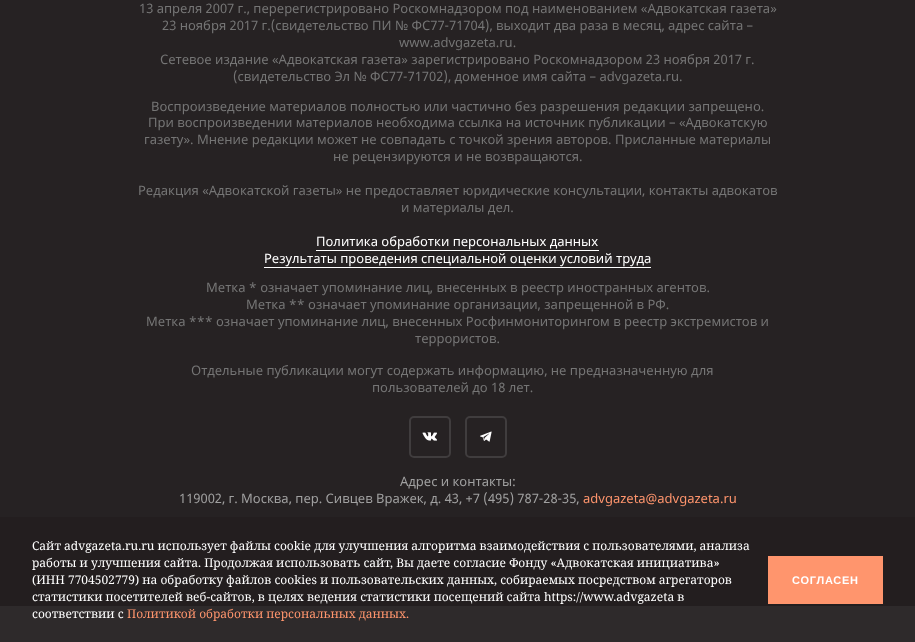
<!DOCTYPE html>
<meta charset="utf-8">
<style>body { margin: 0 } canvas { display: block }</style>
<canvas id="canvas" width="915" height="642"></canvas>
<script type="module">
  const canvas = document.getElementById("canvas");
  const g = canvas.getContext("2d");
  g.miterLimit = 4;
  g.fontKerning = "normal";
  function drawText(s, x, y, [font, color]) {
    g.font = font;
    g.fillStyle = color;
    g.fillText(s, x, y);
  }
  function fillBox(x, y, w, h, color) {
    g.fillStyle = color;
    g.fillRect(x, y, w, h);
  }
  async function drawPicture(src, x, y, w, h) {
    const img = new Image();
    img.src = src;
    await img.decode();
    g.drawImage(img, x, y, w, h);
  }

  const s1 = ["13px Noto Sans", "#757575"];
  const s2 = ["13px Noto Sans", "#FFFFFF"];
  const s3 = ["13px Noto Sans", "#A0A0A0"];
  const s4 = ["13px Noto Sans", "#FF956D"];
  const s5 = ["12px Noto Serif", "#FFFFFF"];
  const s6 = ["12px Noto Serif", "#FF956D"];
  const s7 = ["bold 11px Liberation Sans", "#FFFFFF"];

  fillBox(0, 0, 915, 642, "#FFFFFF");
  fillBox(0, 0, 915, 606, "#262223");
  drawText("13 апреля 2007 г., перерегистрировано Роскомнадзором под наименованием «Адвокатская газета»", 139, 13, s1);
  drawText("23 ноября 2017 г.(свидетельство ПИ № ФС77-71704), выходит два раза в месяц, адрес сайта –", 162, 30, s1);
  drawText("www.advgazeta.ru.", 399, 47, s1);
  drawText("Сетевое издание «Адвокатская газета» зарегистрировано Роскомнадзором 23 ноября 2017 г.", 160, 64, s1);
  drawText("(свидетельство Эл № ФС77-71702), доменное имя сайта – advgazeta.ru.", 233, 81, s1);
  drawText("Воспроизведение материалов полностью или частично без разрешения редакции запрещено.", 151, 111, s1);
  drawText("При воспроизведении материалов необходима ссылка на источник публикации – «Адвокатскую", 148, 127, s1);
  drawText("газету». Мнение редакции может не совпадать с точкой зрения авторов. Присланные материалы", 144, 144, s1);
  drawText("не рецензируются и не возвращаются.", 333, 161, s1);
  drawText("Редакция «Адвокатской газеты» не предоставляет юридические консультации, контакты адвокатов", 138, 195, s1);
  drawText("и материалы дел.", 401, 212, s1);
  drawText("Политика обработки персональных данных", 316, 246, s2);
  fillBox(316, 250, 283, 1, "#FFFFFF");
  drawText("Результаты проведения специальной оценки условий труда", 264, 263, s2);
  fillBox(264, 267, 387, 1, "#FFFFFF");
  drawText("Метка * означает упоминание лиц, внесенных в реестр иностранных агентов.", 206, 292, s1);
  drawText("Метка ** означает упоминание организации, запрещенной в РФ.", 246, 309, s1);
  drawText("Метка *** означает упоминание лиц, внесенных Росфинмониторингом в реестр экстремистов и", 146, 326, s1);
  drawText("террористов.", 415, 343, s1);
  drawText("Отдельные публикации могут содержать информацию, не предназначенную для", 191, 375, s1);
  drawText("пользователей до 18 лет.", 372, 392, s1);
  g.beginPath();
  g.roundRect(410, 417, 40, 40, 4);
  g.strokeStyle = "#403D3E";
  g.lineWidth = 2;
  g.stroke();
  await drawPicture("pic1.png", 422, 432, 15, 9);
  g.beginPath();
  g.roundRect(466, 417, 40, 40, 4);
  g.stroke();
  await drawPicture("pic2.png", 480, 431, 12, 11);
  drawText("Адрес и контакты:", 400, 486, s3);
  drawText("119002, г. Москва, пер. Сивцев Вражек, д. 43, +7 (495) 787-28-35,", 179, 503, s3);
  drawText("advgazeta@advgazeta.ru", 583, 503, s4);
  fillBox(0, 517, 915, 125, "rgba(35, 31, 32, 0.95)");
  drawText("Сайт advgazeta.ru.ru использует файлы cookie для улучшения алгоритма взаимодействия с пользователями, анализа", 32, 550, s5);
  drawText("работы и улучшения сайта. Продолжая использовать сайт, Вы даете согласие Фонду «Адвокатская инициатива»", 32, 567, s5);
  drawText("(ИНН 7704502779) на обработку файлов cookies и пользовательских данных, собираемых посредством агрегаторов", 32, 584, s5);
  drawText("статистики посетителей веб-сайтов, в целях ведения статистики посещений сайта https://www.advgazeta в", 32, 601, s5);
  drawText("соответствии с", 32, 618, s5);
  drawText("Политикой обработки персональных данных.", 127, 618, s6);
  fillBox(768, 556, 115, 48, "#FF956D");
  g.letterSpacing = "0.75px";
  drawText("СОГЛАСЕН", 792, 584, s7);
</script>
